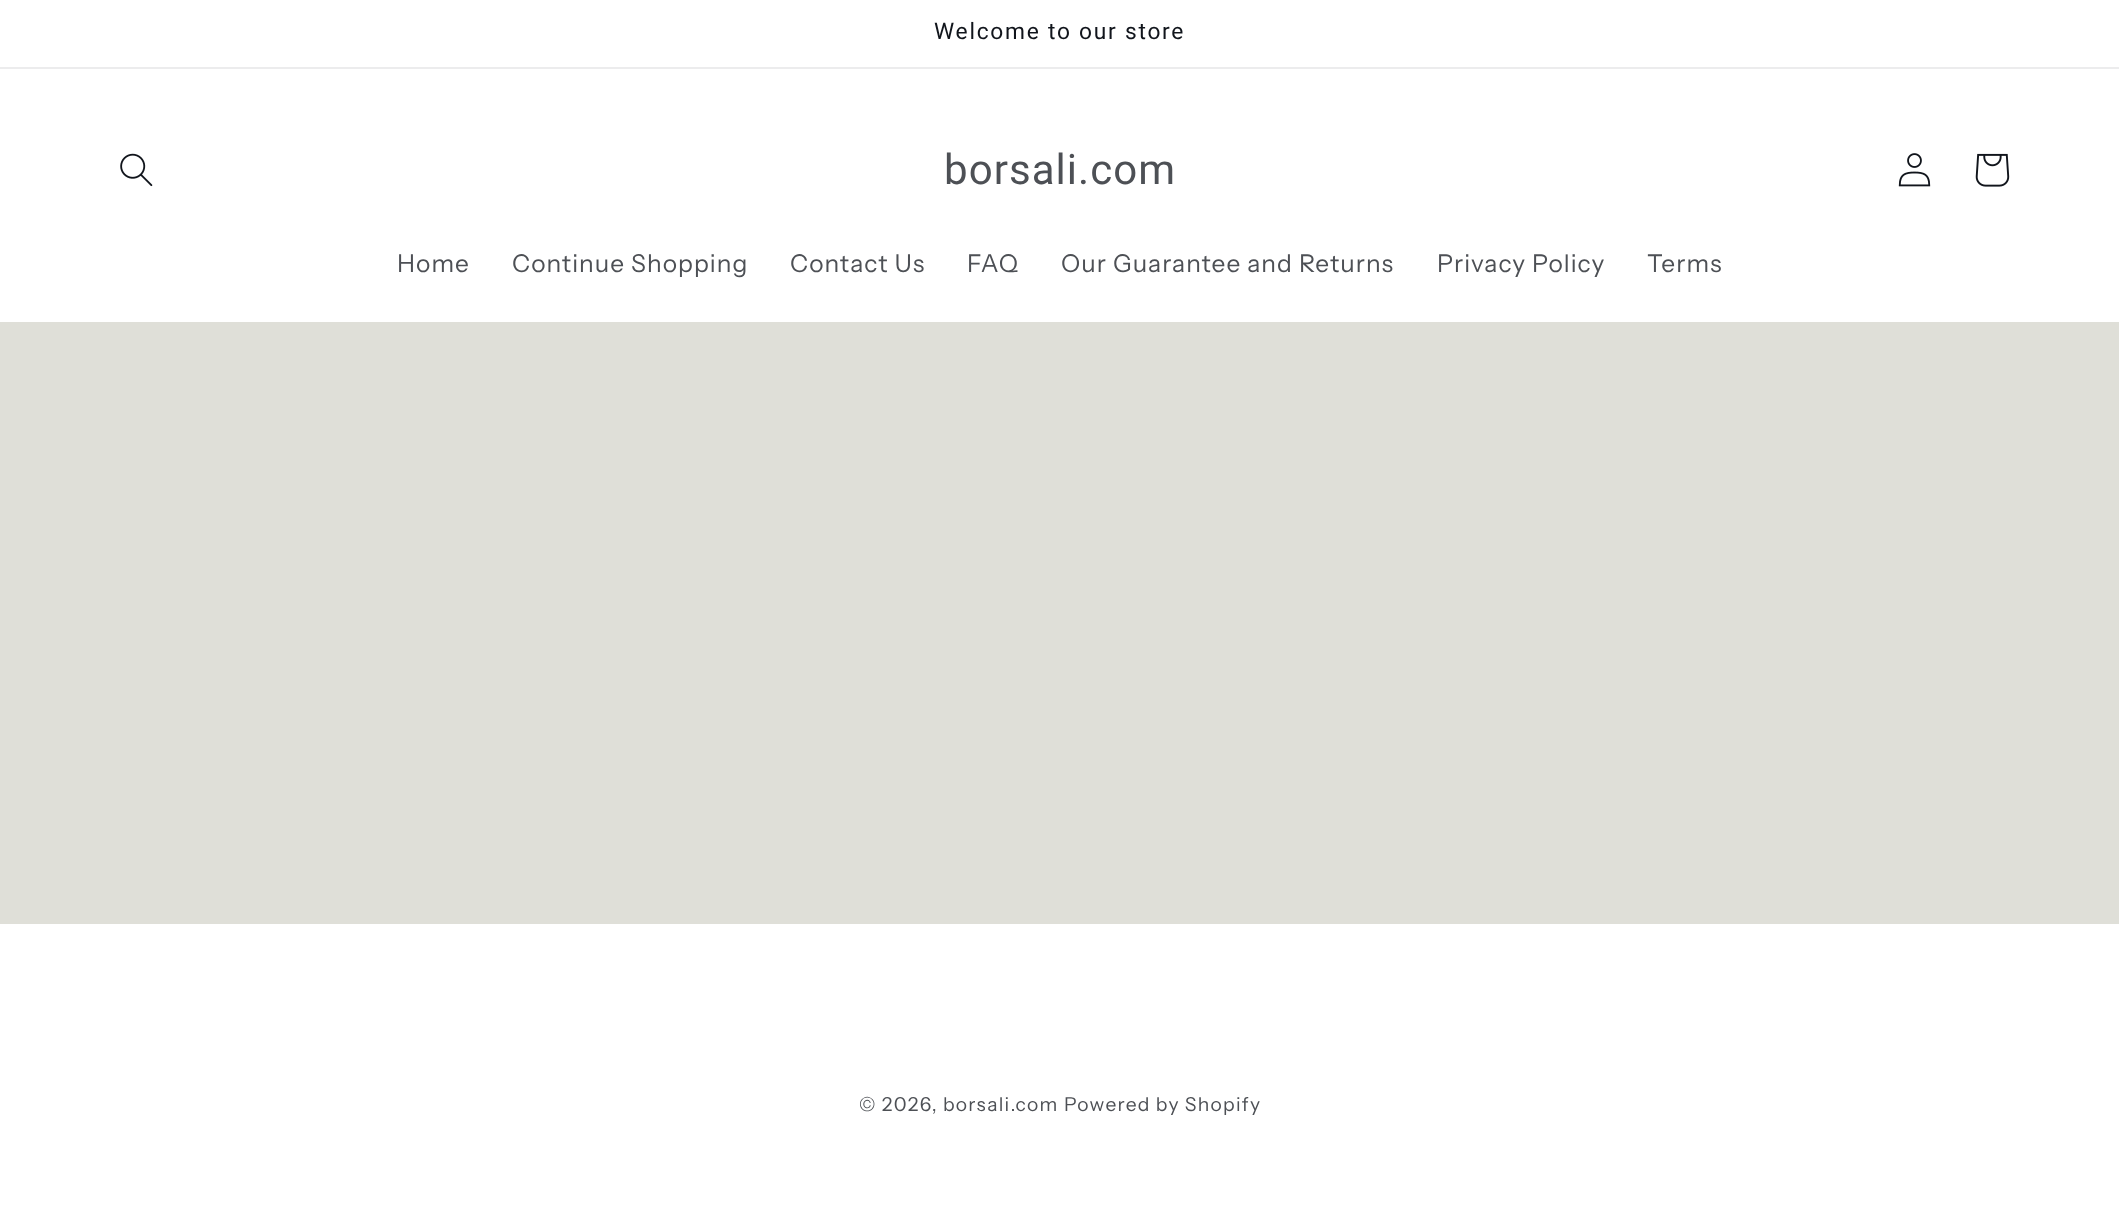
<!DOCTYPE html>
<meta charset="utf-8">
<style>body { margin: 0 } canvas { display: block }</style>
<canvas id="canvas" width="2119" height="1205"></canvas>
<script type="module">
  const canvas = document.getElementById("canvas");
  const g = canvas.getContext("2d");
  g.miterLimit = 4;
  g.fontKerning = "normal";
  function drawText(s, x, y, [font, color]) {
    g.font = font;
    g.fillStyle = color;
    g.fillText(s, x, y);
  }
  function fillBox(x, y, w, h, color) {
    g.fillStyle = color;
    g.fillRect(x, y, w, h);
  }
  async function drawPicture(src, x, y, w, h) {
    const img = new Image();
    img.src = src;
    await img.decode();
    g.drawImage(img, x, y, w, h);
  }

  const s1 = ["22.75px Roboto", "#11151C"];
  const s2 = ["42px Roboto", "#4D5055"];
  const s3 = ["24.5px Instrument Sans", "#4D5055"];
  const s4 = ["19.25px Instrument Sans", "#4D5055"];

  fillBox(0, 0, 2119, 1205, "#DFDFD8");
  fillBox(0, 0, 2119, 67, "#FFFFFF");
  fillBox(0, 67, 2119, 2, "#ECECED");
  g.letterSpacing = "1.75px";
  drawText("Welcome to our store", 934, 39, s1);
  fillBox(0, 69, 2119, 253, "#FFFFFF");
  await drawPicture("pic1.png", 120, 153, 33, 34);
  g.letterSpacing = "1.05px";
  drawText("borsali.com", 944, 184, s2);
  await drawPicture("pic2.png", 1898, 153, 33, 34);
  await drawPicture("pic3.png", 1975, 153, 35, 34);
  drawText("Home", 397, 272, s3);
  drawText("Continue Shopping", 512, 272, s3);
  drawText("Contact Us", 790, 272, s3);
  drawText("FAQ", 967, 272, s3);
  drawText("Our Guarantee and Returns", 1061, 272, s3);
  drawText("Privacy Policy", 1437, 272, s3);
  drawText("Terms", 1647, 272, s3);
  fillBox(0, 924, 2119, 281, "#FFFFFF");
  g.letterSpacing = "1.25px";
  drawText("© 2026, borsali.com", 859, 1111, s4);
  drawText("Powered by Shopify", 1064, 1111, s4);
</script>
